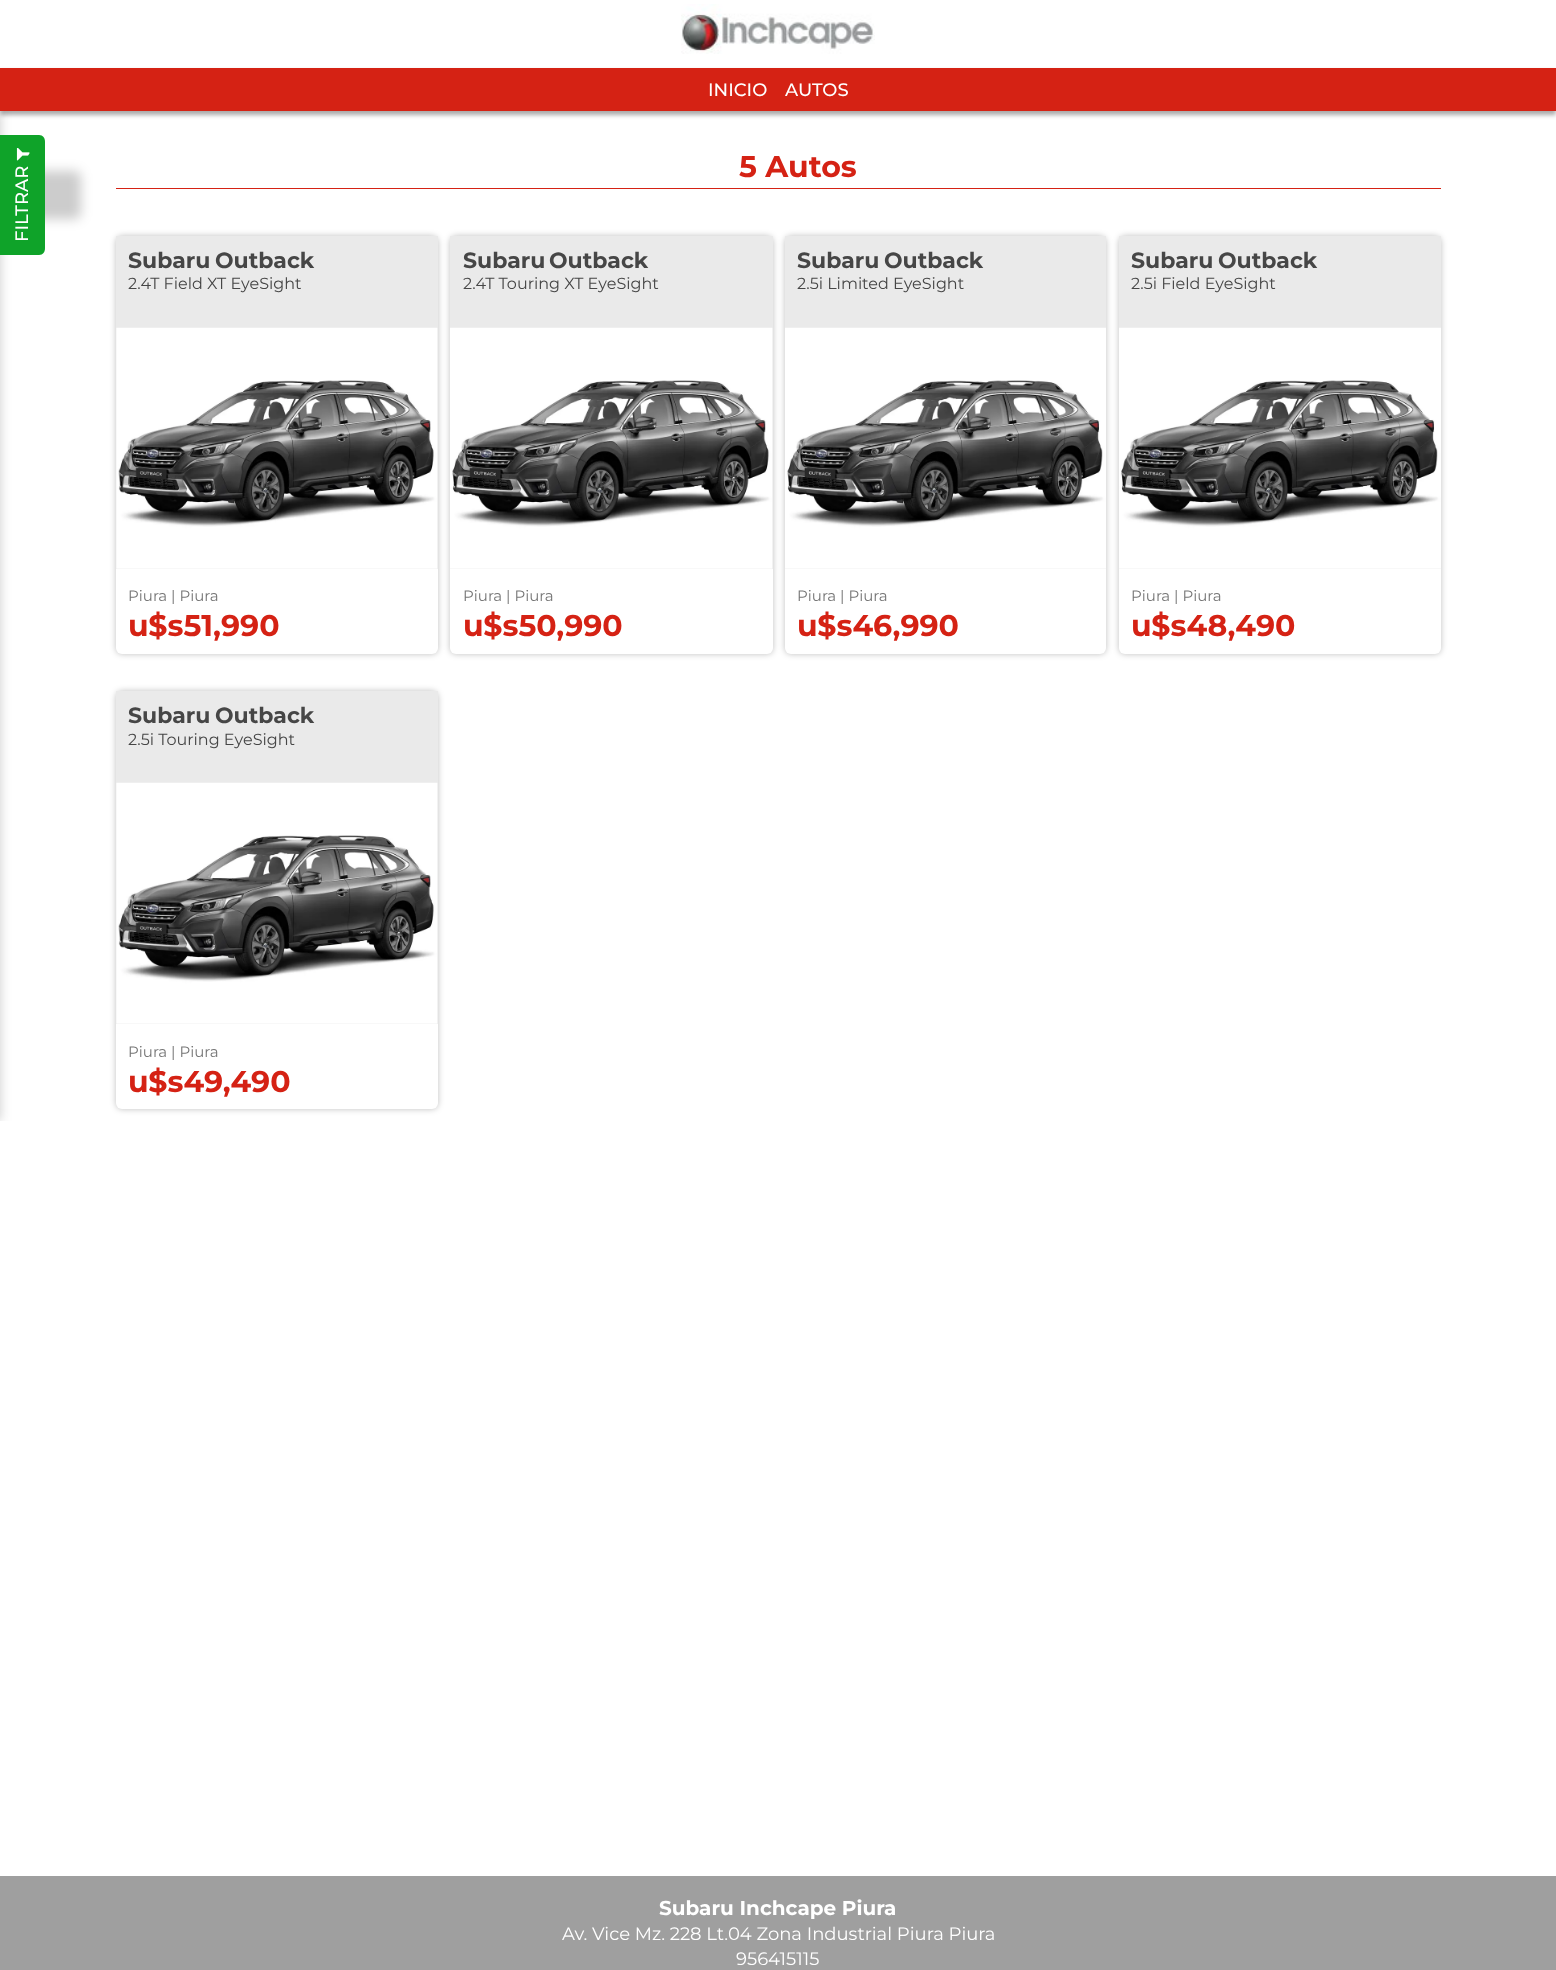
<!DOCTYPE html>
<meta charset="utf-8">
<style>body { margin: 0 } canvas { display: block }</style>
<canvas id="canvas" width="1556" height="1970"></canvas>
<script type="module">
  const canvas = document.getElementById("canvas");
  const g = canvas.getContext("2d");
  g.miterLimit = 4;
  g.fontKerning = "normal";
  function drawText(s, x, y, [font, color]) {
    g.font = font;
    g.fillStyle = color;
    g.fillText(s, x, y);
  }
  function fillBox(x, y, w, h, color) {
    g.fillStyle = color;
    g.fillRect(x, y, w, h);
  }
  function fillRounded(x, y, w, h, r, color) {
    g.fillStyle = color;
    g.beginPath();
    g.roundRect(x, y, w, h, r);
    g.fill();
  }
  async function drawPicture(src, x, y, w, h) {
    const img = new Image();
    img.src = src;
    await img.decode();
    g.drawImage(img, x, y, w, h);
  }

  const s1 = ["500 18px Montserrat", "#FFFFFF"];
  const s2 = ["bold 30px Montserrat", "#D52214"];
  const s3 = ["bold 22px Montserrat", "#464646"];
  const s4 = ["16px Montserrat", "#464646"];
  const s5 = ["15px Montserrat", "#757575"];
  const s6 = ["bold 20px Montserrat", "#FFFFFF"];
  const s7 = ["18px Montserrat", "#FFFFFF"];

  fillBox(0, 0, 1556, 1970, "#FFFFFF");
  await drawPicture("pic1.png", 681, 4, 194, 50);
  g.fillStyle = "rgba(0, 0, 0, 0.33)";
  g.filter = "blur(2px)";
  g.beginPath();
  g.rect(0, 71, 1556, 44);
  g.fill();
  g.filter = "none";
  g.save();
  g.beginPath();
  g.rect(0, 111, 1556, 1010);
  g.clip();
  g.fillStyle = "rgba(0, 0, 0, 0.2)";
  g.filter = "blur(6px)";
  g.beginPath();
  g.rect(-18, 111, 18, 1010);
  g.fill();
  g.filter = "none";
  g.restore();
  fillBox(0, 68, 1556, 43, "#D52214");
  drawText("INICIO", 708, 96, s1);
  drawText("AUTOS", 785, 96, s1);
  g.fillStyle = "rgba(0, 0, 0, 0.2)";
  g.filter = "blur(6px)";
  g.beginPath();
  g.roundRect(-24, 171, 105, 48, 6);
  g.fill();
  g.filter = "none";
  g.fillStyle = "#0FA329";
  g.beginPath();
  g.moveTo(-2, 255);
  g.lineTo(-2, 135);
  g.lineTo(39, 135);
  g.bezierCurveTo(43, 135, 45, 138, 45, 142);
  g.lineTo(45, 248);
  g.bezierCurveTo(45, 252, 43, 255, 39, 255);
  g.closePath();
  g.fill();
  await drawPicture("pic2.png", 16, 148, 14, 13);
  g.fillStyle = "#FFFFFF";
  g.save();
  g.translate(28, 242);
  g.rotate(-90 * Math.PI / 180);
  g.fillText("FILTRAR", 0, 0);
  g.restore();
  drawText("5 Autos", 739, 177, s2);
  fillBox(116, 188, 1325, 1, "#D52214");
  g.fillStyle = "rgba(0, 0, 0, 0.25)";
  g.filter = "blur(3px)";
  g.beginPath();
  g.roundRect(116, 236, 322, 418, 6);
  g.fill();
  g.filter = "none";
  fillRounded(116, 236, 322, 418, 6, "#FFFFFF");
  fillBox(116, 236, 322, 92, "#EAEAEA");
  drawText("Subaru", 128, 268, s3);
  drawText("Outback", 215, 268, s3);
  drawText("2.4T Field XT EyeSight", 128, 289, s4);
  fillBox(116, 328, 322, 241, "#EEEEEE");
  await drawPicture("pic3.png", 116, 327, 322, 242);
  drawText("Piura | Piura", 128, 601, s5);
  drawText("u$s51,990", 128, 636, s2);
  g.fillStyle = "rgba(0, 0, 0, 0.25)";
  g.filter = "blur(3px)";
  g.beginPath();
  g.roundRect(450, 236, 323, 418, 6);
  g.fill();
  g.filter = "none";
  fillRounded(450, 236, 323, 418, 6, "#FFFFFF");
  fillBox(450, 236, 323, 92, "#EAEAEA");
  drawText("Outback", 549, 268, s3);
  drawText("2.4T Touring XT EyeSight", 463, 289, s4);
  drawText("Subaru", 463, 268, s3);
  fillBox(450, 328, 323, 241, "#EEEEEE");
  await drawPicture("pic4.png", 450, 327, 323, 242);
  drawText("Piura | Piura", 463, 601, s5);
  drawText("u$s50,990", 463, 636, s2);
  g.fillStyle = "rgba(0, 0, 0, 0.25)";
  g.filter = "blur(3px)";
  g.beginPath();
  g.roundRect(785, 236, 321, 418, 6);
  g.fill();
  g.filter = "none";
  fillRounded(785, 236, 321, 418, 6, "#FFFFFF");
  fillBox(785, 236, 321, 92, "#EAEAEA");
  drawText("Subaru", 797, 268, s3);
  drawText("Outback", 884, 268, s3);
  drawText("2.5i Limited EyeSight", 797, 289, s4);
  fillBox(785, 568, 321, 1, "#EEEEEE");
  await drawPicture("pic5.png", 785, 327, 321, 242);
  drawText("Piura | Piura", 797, 601, s5);
  drawText("u$s46,990", 797, 636, s2);
  g.fillStyle = "rgba(0, 0, 0, 0.25)";
  g.filter = "blur(3px)";
  g.beginPath();
  g.roundRect(1119, 236, 322, 418, 6);
  g.fill();
  g.filter = "none";
  fillRounded(1119, 236, 322, 418, 6, "#FFFFFF");
  fillBox(1119, 236, 322, 92, "#EAEAEA");
  drawText("Subaru", 1131, 268, s3);
  drawText("Outback", 1218, 268, s3);
  drawText("2.5i Field EyeSight", 1131, 289, s4);
  fillBox(1119, 568, 322, 1, "#EEEEEE");
  await drawPicture("pic6.png", 1119, 327, 322, 242);
  drawText("Piura | Piura", 1131, 601, s5);
  drawText("u$s48,490", 1131, 636, s2);
  g.fillStyle = "rgba(0, 0, 0, 0.25)";
  g.filter = "blur(3px)";
  g.beginPath();
  g.roundRect(116, 691, 322, 418, 6);
  g.fill();
  g.filter = "none";
  fillRounded(116, 691, 322, 418, 6, "#FFFFFF");
  fillBox(116, 691, 322, 92, "#EAEAEA");
  drawText("Subaru", 128, 723, s3);
  drawText("Outback", 215, 723, s3);
  drawText("2.5i Touring EyeSight", 128, 745, s4);
  fillBox(116, 783, 322, 241, "#EEEEEE");
  await drawPicture("pic3.png", 116, 782, 322, 242);
  drawText("Piura | Piura", 128, 1057, s5);
  drawText("u$s49,490", 128, 1092, s2);
  fillBox(0, 1876, 1556, 94, "#9F9F9F");
  drawText("Subaru Inchcape Piura", 659, 1915, s6);
  drawText("Av. Vice Mz. 228 Lt.04 Zona Industrial Piura Piura", 562, 1940, s7);
  drawText("956415115", 736, 1965, s7);
</script>
